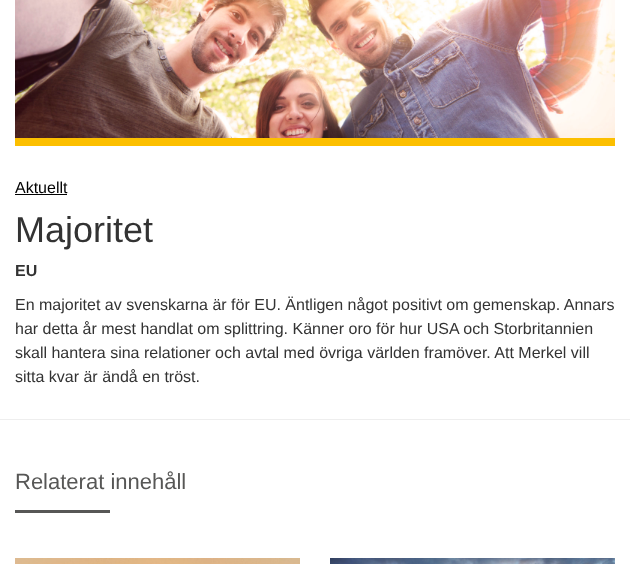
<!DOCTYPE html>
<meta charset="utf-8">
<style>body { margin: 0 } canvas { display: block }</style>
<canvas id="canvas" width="630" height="564"></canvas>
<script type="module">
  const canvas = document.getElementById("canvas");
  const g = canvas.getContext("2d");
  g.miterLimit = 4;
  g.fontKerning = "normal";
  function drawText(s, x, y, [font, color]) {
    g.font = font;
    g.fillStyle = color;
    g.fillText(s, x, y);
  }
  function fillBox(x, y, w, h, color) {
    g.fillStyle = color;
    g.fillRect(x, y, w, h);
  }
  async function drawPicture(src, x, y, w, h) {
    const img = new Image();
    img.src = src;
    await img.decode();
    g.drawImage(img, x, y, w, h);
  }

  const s1 = ["16px Liberation Sans", "#000000"];
  const s2 = ["36px Liberation Sans", "#333333"];
  const s3 = ["bold 16px Liberation Sans", "#333333"];
  const s4 = ["16px Liberation Sans", "#333333"];
  const s5 = ["22px Liberation Sans", "#575756"];

  fillBox(0, 0, 630, 564, "#FFFFFF");
  fillBox(15, 138, 600, 8, "#FCBF00");
  await drawPicture("pic1.png", 15, 0, 600, 138);
  drawText("Aktuellt", 15, 193, s1);
  fillBox(15, 194, 52, 1, "#000000");
  drawText("Majoritet", 15, 242, s2);
  drawText("EU", 15, 276, s3);
  drawText("En majoritet av svenskarna är för EU. Äntligen något positivt om gemenskap. Annars", 15, 310, s4);
  drawText("har detta år mest handlat om splittring. Känner oro för hur USA och Storbritannien", 15, 334, s4);
  drawText("skall hantera sina relationer och avtal med övriga världen framöver. Att Merkel vill", 15, 358, s4);
  drawText("sitta kvar är ändå en tröst.", 15, 382, s4);
  fillBox(0, 419, 630, 1, "#EEEEEE");
  drawText("Relaterat innehåll", 15, 489, s5);
  fillBox(15, 510, 95, 3, "#575756");
  await drawPicture("pic2.png", 15, 558, 285, 6);
  await drawPicture("pic3.png", 330, 558, 285, 6);
</script>
